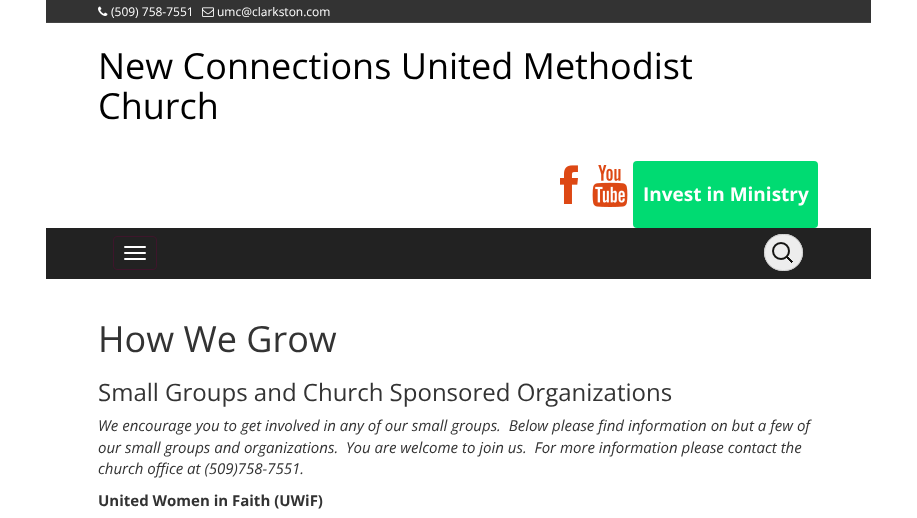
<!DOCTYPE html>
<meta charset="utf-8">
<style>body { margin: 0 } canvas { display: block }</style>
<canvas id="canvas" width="917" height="518"></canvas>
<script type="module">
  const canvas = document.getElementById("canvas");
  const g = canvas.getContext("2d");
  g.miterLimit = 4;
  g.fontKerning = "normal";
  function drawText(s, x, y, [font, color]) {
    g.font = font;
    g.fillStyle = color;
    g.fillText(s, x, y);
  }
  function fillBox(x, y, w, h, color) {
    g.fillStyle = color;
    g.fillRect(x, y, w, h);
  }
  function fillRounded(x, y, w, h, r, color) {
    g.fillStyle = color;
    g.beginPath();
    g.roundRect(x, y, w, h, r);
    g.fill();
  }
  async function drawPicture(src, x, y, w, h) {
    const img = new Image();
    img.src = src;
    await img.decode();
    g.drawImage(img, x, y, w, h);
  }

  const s1 = ["12px Open Sans", "#FFFFFF"];
  const s2 = ["36px Open Sans", "#000000"];
  const s3 = ["bold 19px Open Sans", "#FFFFFF"];
  const s4 = ["36px Open Sans", "#333333"];
  const s5 = ["24px Open Sans", "#333333"];
  const s6 = ["italic 15px Open Sans", "#333333"];
  const s7 = ["bold 15px Open Sans", "#333333"];

  fillBox(0, 0, 917, 518, "#FFFFFF");
  fillBox(46, 0, 825, 22, "#333333");
  fillBox(46, 22, 825, 1, "#444444");
  await drawPicture("pic1.png", 98, 6, 10, 10);
  drawText("(509) 758-7551", 111, 16, s1);
  await drawPicture("pic2.png", 202, 7, 12, 10);
  drawText("umc@clarkston.com", 217, 16, s1);
  drawText("New Connections United Methodist", 98, 79, s2);
  drawText("Church", 98, 119, s2);
  await drawPicture("pic3.png", 560, 165, 18, 39);
  await drawPicture("pic4.png", 592, 165, 36, 42);
  fillRounded(633, 161, 185, 67, 4, "#00DB72");
  drawText("Invest in Ministry", 643, 201, s3);
  fillBox(46, 228, 825, 51, "#222222");
  g.beginPath();
  g.roundRect(113.5, 236.5, 43, 33, 3.5);
  g.strokeStyle = "#3E152B";
  g.stroke();
  fillRounded(124, 246, 22, 2, 1, "#FFFFFF");
  fillRounded(124, 252, 22, 2, 1, "#FFFFFF");
  fillRounded(124, 258, 22, 2, 1, "#FFFFFF");
  fillRounded(764, 234, 39, 37, 18.5, "#EDEDED");
  await drawPicture("pic5.png", 772, 242, 21, 21);
  g.beginPath();
  g.roundRect(764.5, 234.5, 38, 36, 18);
  g.strokeStyle = "#CCCCCC";
  g.stroke();
  drawText("How We Grow", 98, 352, s4);
  drawText("Small Groups and Church Sponsored Organizations", 98, 401, s5);
  drawText("We encourage you to get involved in any of our small groups.  Below please find information on but a few of", 98, 431, s6);
  drawText("our small groups and organizations.  You are welcome to join us.  For more information please contact the", 98, 453, s6);
  drawText("church office at (509)758-7551.", 98, 474, s6);
  drawText("United Women in Faith (UWiF)", 98, 506, s7);
</script>
